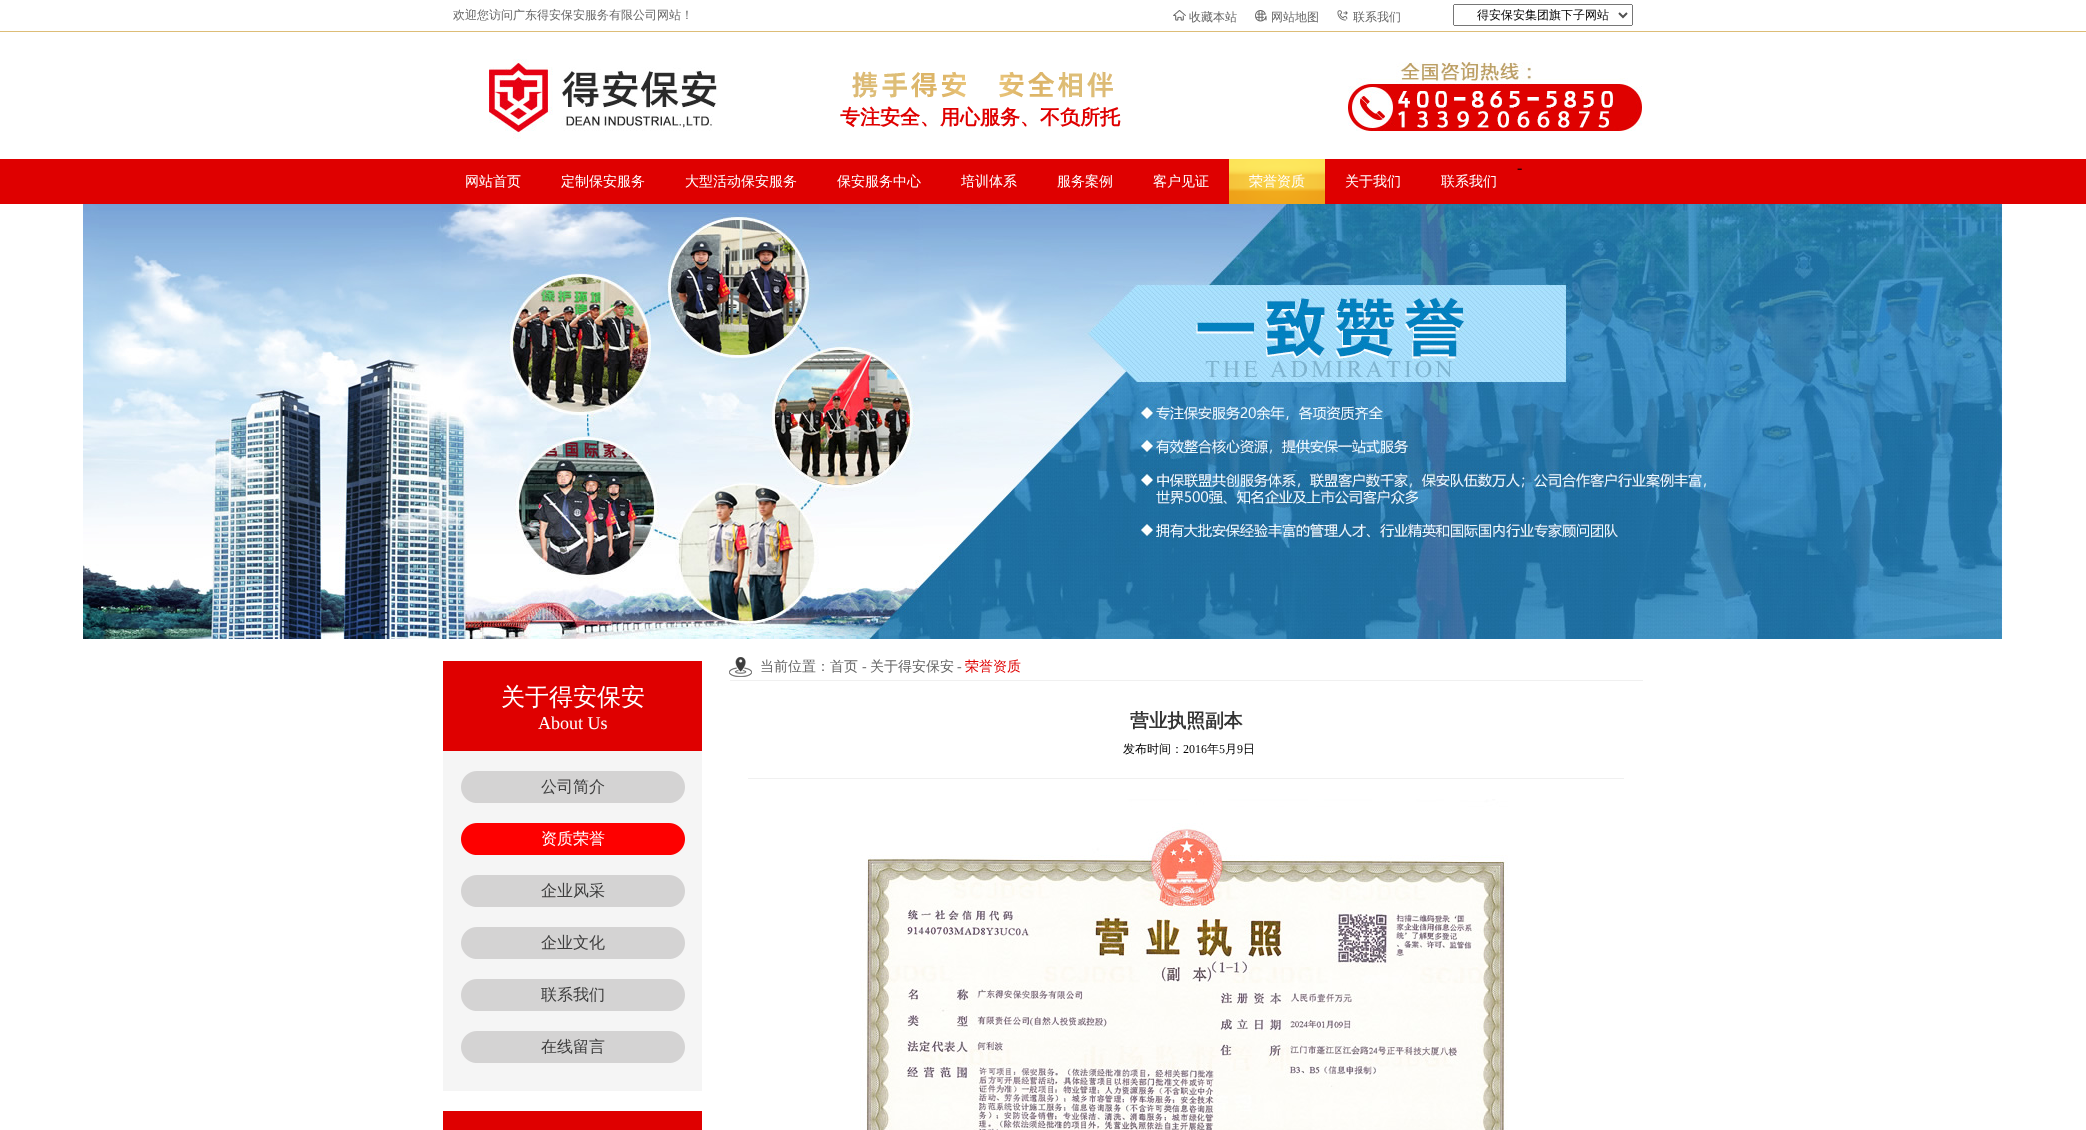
<!DOCTYPE html>
<meta charset="utf-8">
<style>body { margin: 0 } canvas { display: block }</style>
<canvas id="canvas" width="2086" height="1130"></canvas>
<script type="module">
  const canvas = document.getElementById("canvas");
  const g = canvas.getContext("2d");
  g.miterLimit = 4;
  g.fontKerning = "normal";
  function drawText(s, x, y, [font, color]) {
    g.font = font;
    g.fillStyle = color;
    g.fillText(s, x, y);
  }
  function fillBox(x, y, w, h, color) {
    g.fillStyle = color;
    g.fillRect(x, y, w, h);
  }
  async function drawPicture(src, x, y, w, h) {
    const img = new Image();
    img.src = src;
    await img.decode();
    g.drawImage(img, x, y, w, h);
  }

  const s1 = ["500 12px WenQuanYi Zen Hei", "#666666"];
  const s2 = ["500 12px WenQuanYi Zen Hei", "#000000"];
  const s3 = ["bold 20px WenQuanYi Zen Hei", "#DF0000"];
  const s4 = ["16px Liberation Serif", "#000000"];
  const s5 = ["500 14px WenQuanYi Zen Hei", "#FFFFFF"];
  const s6 = ["500 24px WenQuanYi Zen Hei", "#FFFFFF"];
  const s7 = ["18px Liberation Serif", "#FFFFFF"];
  const s8 = ["500 16px WenQuanYi Zen Hei", "#3D3D3D"];
  const s9 = ["500 16px WenQuanYi Zen Hei", "#FFFFFF"];
  const s10 = ["500 14px WenQuanYi Zen Hei", "#666666"];
  const s11 = ["14px Liberation Serif", "#666666"];
  const s12 = ["500 14px WenQuanYi Zen Hei", "#DF0000"];
  const s13 = ["bold 18.75px WenQuanYi Zen Hei", "#333333"];
  const s14 = ["12px Liberation Serif", "#000000"];

  fillBox(0, 0, 2086, 1130, "#FFFFFF");
  fillBox(0, 31, 2086, 1, "#DDBD77");
  drawText("欢迎您访问广东得安保安服务有限公司网站！", 453, 19, s1);
  await drawPicture("pic1.png", 1173, 10, 13, 11);
  drawText("收藏本站", 1189, 21, s1);
  await drawPicture("pic2.png", 1255, 10, 12, 12);
  drawText("网站地图", 1271, 21, s1);
  await drawPicture("pic3.png", 1337, 10, 11, 11);
  drawText("联系我们", 1353, 21, s1);
  await drawPicture("pic4.png", 1453, 4, 180, 22);
  drawText("得安保安集团旗下子网站", 1477, 19, s2);
  await drawPicture("pic5.png", 489, 59, 229, 80);
  await drawPicture("pic6.png", 852, 71, 261, 27);
  drawText("专注安全、用心服务、不负所托", 840, 124, s3);
  await drawPicture("pic7.png", 1348, 62, 294, 69);
  fillBox(0, 159, 2086, 45, "#DF0000");
  drawText("-", 1517, 173, s4);
  drawText("网站首页", 465, 186, s5);
  drawText("定制保安服务", 561, 186, s5);
  drawText("大型活动保安服务", 685, 186, s5);
  drawText("保安服务中心", 837, 186, s5);
  drawText("培训体系", 961, 186, s5);
  drawText("服务案例", 1057, 186, s5);
  drawText("客户见证", 1153, 186, s5);
  await drawPicture("pic8.png", 1229, 159, 96, 45);
  drawText("荣誉资质", 1249, 186, s5);
  drawText("关于我们", 1345, 186, s5);
  drawText("联系我们", 1441, 186, s5);
  await drawPicture("pic9.png", 83, 204, 1920, 435);
  fillBox(443, 751, 259, 340, "#F5F5F5");
  fillBox(443, 661, 259, 90, "#DF0000");
  drawText("关于得安保安", 501, 705, s6);
  drawText("About Us", 538, 729, s7);
  await drawPicture("pic10.png", 461, 771, 224, 32);
  drawText("公司简介", 541, 792, s8);
  await drawPicture("pic11.png", 461, 823, 224, 32);
  drawText("资质荣誉", 541, 844, s9);
  await drawPicture("pic10.png", 461, 875, 224, 32);
  drawText("企业风采", 541, 896, s8);
  await drawPicture("pic10.png", 461, 927, 224, 32);
  drawText("企业文化", 541, 948, s8);
  await drawPicture("pic10.png", 461, 979, 224, 32);
  drawText("联系我们", 541, 1000, s8);
  await drawPicture("pic10.png", 461, 1031, 224, 32);
  drawText("在线留言", 541, 1052, s8);
  fillBox(443, 1111, 259, 19, "#DF0000");
  await drawPicture("pic12.png", 729, 657, 914, 24);
  drawText("当前位置：首页", 760, 671, s10);
  drawText("-", 862, 671, s11);
  drawText("关于得安保安", 870, 671, s10);
  drawText("-", 957, 671, s11);
  drawText("荣誉资质", 965, 671, s12);
  drawText("营业执照副本", 1130, 727, s13);
  fillBox(748, 778, 876, 1, "#F0F0F0");
  drawText("发布时间：", 1123, 753, s2);
  drawText("2016", 1183, 753, s14);
  drawText("年", 1207, 753, s2);
  drawText("5", 1219, 753, s14);
  drawText("月", 1225, 753, s2);
  drawText("9", 1237, 753, s14);
  drawText("日", 1243, 753, s2);
  await drawPicture("pic13.png", 860, 799, 648, 331);
</script>
